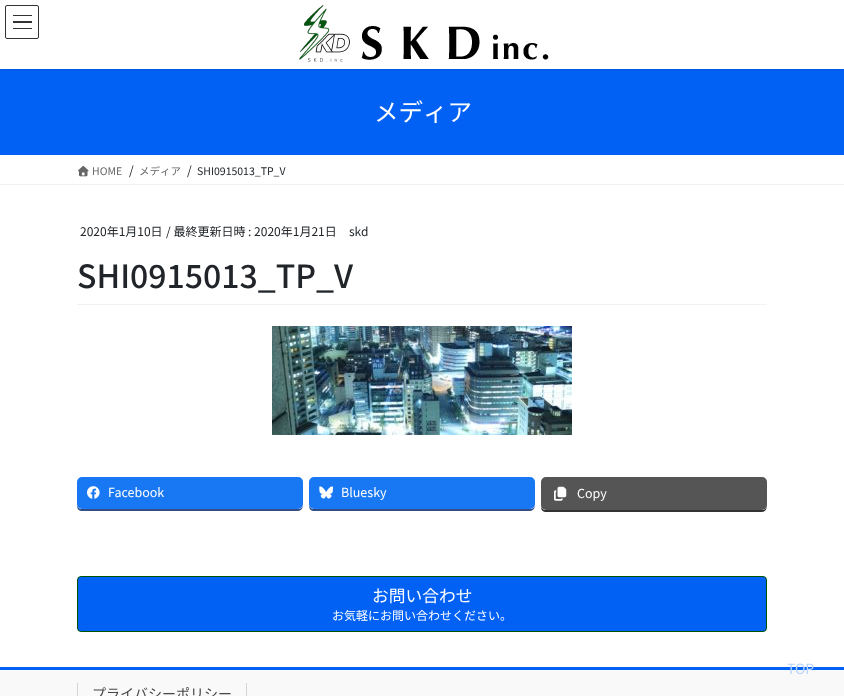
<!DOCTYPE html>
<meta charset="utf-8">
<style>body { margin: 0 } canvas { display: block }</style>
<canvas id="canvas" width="844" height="696"></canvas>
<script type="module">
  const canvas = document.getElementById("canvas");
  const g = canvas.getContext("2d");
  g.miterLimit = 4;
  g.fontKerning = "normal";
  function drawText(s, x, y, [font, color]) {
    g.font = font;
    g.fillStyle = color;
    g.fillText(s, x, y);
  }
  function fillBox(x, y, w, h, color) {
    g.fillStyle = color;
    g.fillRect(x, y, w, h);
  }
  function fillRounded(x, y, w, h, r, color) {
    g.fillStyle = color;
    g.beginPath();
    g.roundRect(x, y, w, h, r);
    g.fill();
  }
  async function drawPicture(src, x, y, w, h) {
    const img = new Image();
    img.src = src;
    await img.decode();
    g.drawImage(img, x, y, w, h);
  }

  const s1 = ["24.5px Noto Sans JP", "#FFFFFF"];
  const s2 = ["10.5px Noto Sans JP", "#666666"];
  const s3 = ["12px Noto Sans JP", "#212529"];
  const s4 = ["10.5px Noto Sans JP", "#212529"];
  const s5 = ["500 32px Noto Sans JP", "#212529"];
  const s6 = ["12.5px Noto Sans JP", "#FFFFFF"];
  const s7 = ["16.75px Noto Sans JP", "#FFFFFF"];
  const s8 = ["12px Noto Sans JP", "#FFFFFF"];
  const s9 = ["14px Noto Sans JP", "#BBD4FA"];
  const s10 = ["14px Noto Sans JP", "#464646"];

  fillBox(0, 0, 844, 696, "#FFFFFF");
  fillBox(0, 69, 844, 86, "#0061F4");
  g.save();
  g.beginPath();
  g.rect(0, 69, 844, 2);
  g.clip();
  g.fillStyle = "rgba(0, 0, 0, 0.1)";
  g.filter = "blur(1.5px)";
  g.beginPath();
  g.rect(0, 1, 844, 69);
  g.fill();
  g.filter = "none";
  g.restore();
  await drawPicture("pic1.png", 299, 5, 250, 57);
  fillBox(13, 15, 19, 1, "#333333");
  fillBox(13, 21, 19, 2, "#333333");
  fillBox(13, 28, 19, 1, "#333333");
  g.beginPath();
  g.roundRect(5.5, 5.5, 33, 33, 1.5);
  g.strokeStyle = "#333333";
  g.stroke();
  drawText("メディア", 374, 121, s1);
  fillBox(0, 184, 844, 1, "#F2F2F2");
  await drawPicture("pic2.png", 78, 165, 11, 12);
  drawText("HOME", 92, 175, s2);
  drawText("/", 129, 175, s3);
  drawText("メディア", 139, 175, s2);
  drawText("/", 187, 175, s3);
  drawText("SHI0915013_TP_V", 197, 175, s4);
  fillBox(77, 304, 690, 1, "#F2F2F2");
  drawText("2020年1月10日", 80, 236, s3);
  drawText("/ 最終更新日時 : 2020年1月21日", 166, 236, s3);
  drawText("skd", 349, 236, s3);
  drawText("SHI0915013_TP_V", 77, 288, s5);
  await drawPicture("pic3.png", 272, 326, 300, 109);
  g.fillStyle = "#344E84";
  g.beginPath();
  g.moveTo(77, 504);
  g.bezierCurveTo(77, 507, 77, 510, 81, 511);
  g.lineTo(298, 511);
  g.bezierCurveTo(302, 511, 303, 507, 303, 504);
  g.bezierCurveTo(303, 507, 301, 509, 298, 509);
  g.lineTo(82, 509);
  g.bezierCurveTo(79, 509, 77, 507, 77, 504);
  g.closePath();
  g.fill();
  fillRounded(77, 477, 226, 32, 5, "#1877F2");
  await drawPicture("pic4.png", 87, 486, 13, 13);
  drawText("Facebook", 108, 497, s6);
  g.fillStyle = "#344E84";
  g.beginPath();
  g.moveTo(309, 504);
  g.bezierCurveTo(309, 507, 309, 510, 313, 511);
  g.lineTo(530, 511);
  g.bezierCurveTo(534, 511, 535, 507, 535, 504);
  g.bezierCurveTo(535, 507, 533, 509, 530, 509);
  g.lineTo(314, 509);
  g.bezierCurveTo(311, 509, 309, 507, 309, 504);
  g.closePath();
  g.fill();
  fillRounded(309, 477, 226, 32, 5, "#1877F2");
  await drawPicture("pic5.png", 319, 486, 14, 13);
  drawText("Bluesky", 341, 497, s6);
  g.fillStyle = "#333333";
  g.beginPath();
  g.moveTo(541, 505);
  g.bezierCurveTo(541, 508, 541, 511, 545, 512);
  g.lineTo(762, 512);
  g.bezierCurveTo(766, 512, 767, 508, 767, 505);
  g.bezierCurveTo(767, 508, 765, 510, 762, 510);
  g.lineTo(546, 510);
  g.bezierCurveTo(543, 510, 541, 508, 541, 505);
  g.closePath();
  g.fill();
  fillRounded(541, 477, 226, 33, 5, "#555555");
  await drawPicture("pic6.png", 554, 486, 13, 15);
  drawText("Copy", 577, 498, s6);
  g.fillStyle = "#0061F4";
  g.beginPath();
  g.roundRect(77.5, 576.5, 689, 55, 3.5);
  g.fill();
  g.strokeStyle = "#005401";
  g.stroke();
  drawText("お問い合わせ", 372, 602, s7);
  drawText("お気軽にお問い合わせください。", 332, 620, s8);
  fillBox(0, 670, 844, 26, "#F9F9F9");
  fillBox(0, 667, 844, 3, "#0061F4");
  drawText("TOP", 787, 674, s9);
  drawText("プライバシーポリシー", 92, 699, s10);
  fillBox(246, 683, 1, 13, "#D4D4D4");
  fillBox(77, 683, 1, 13, "#D4D4D4");
</script>
